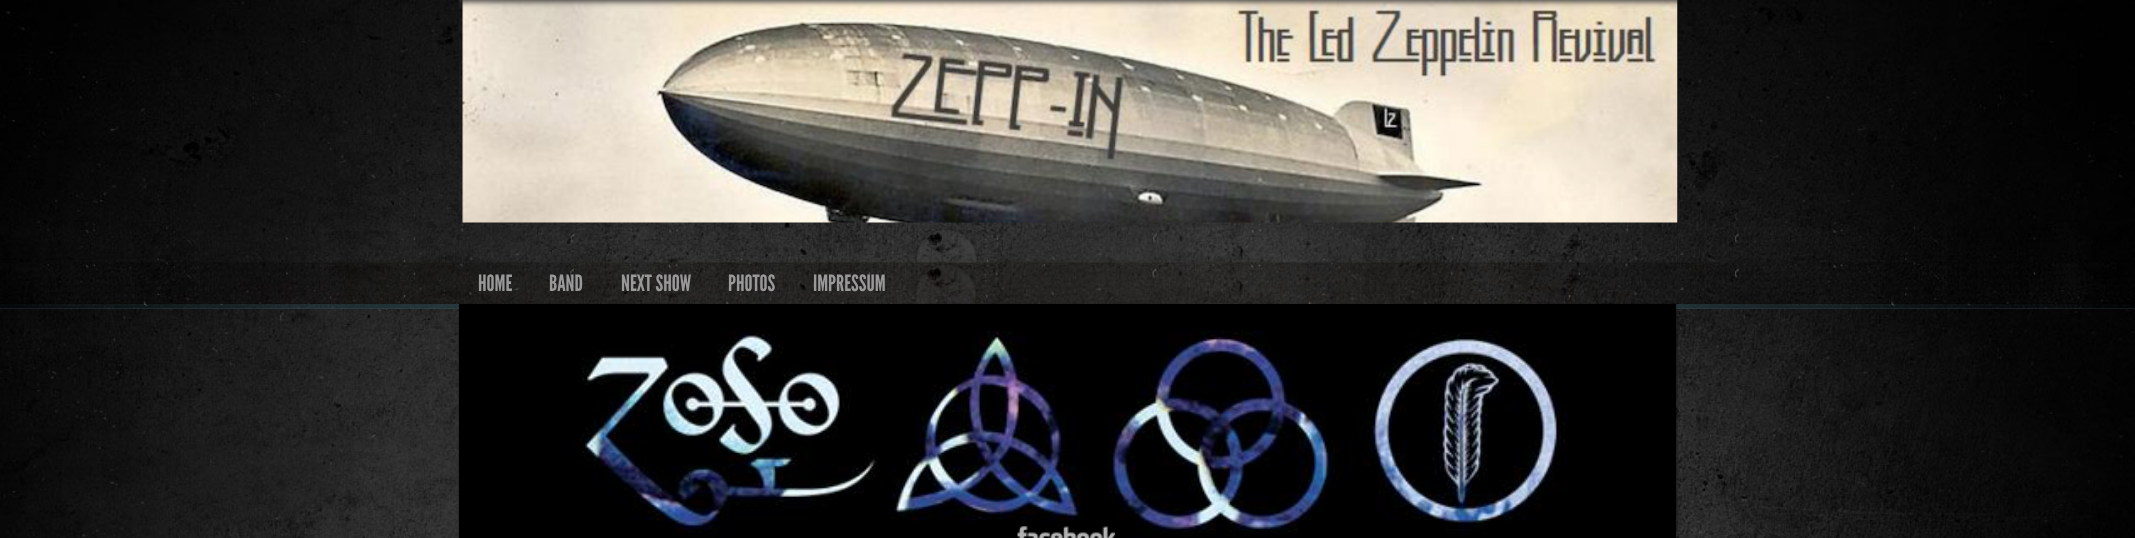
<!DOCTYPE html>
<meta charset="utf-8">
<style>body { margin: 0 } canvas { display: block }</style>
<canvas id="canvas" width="2135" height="538"></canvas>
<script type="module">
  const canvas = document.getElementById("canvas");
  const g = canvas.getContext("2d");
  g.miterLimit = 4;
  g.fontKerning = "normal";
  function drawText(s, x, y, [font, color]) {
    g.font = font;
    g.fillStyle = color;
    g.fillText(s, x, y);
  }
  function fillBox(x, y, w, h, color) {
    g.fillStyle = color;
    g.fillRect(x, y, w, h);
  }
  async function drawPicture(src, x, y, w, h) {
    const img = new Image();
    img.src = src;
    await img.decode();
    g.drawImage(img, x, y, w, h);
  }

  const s1 = ["22.5px League Gothic", "#999999"];

  fillBox(0, 0, 2135, 538, "#FFFFFF");
  await drawPicture("pic1.png", 0, 0, 2135, 538);
  await drawPicture("pic2.png", 458, 0, 1220, 538);
  await drawPicture("pic3.png", 459, 0, 1219, 223);
  await drawPicture("pic4.png", 0, 262, 2135, 42);
  drawText("HOME", 478, 291, s1);
  drawText("BAND", 549, 291, s1);
  drawText("NEXT SHOW", 621, 291, s1);
  drawText("PHOTOS", 728, 291, s1);
  drawText("IMPRESSUM", 813, 291, s1);
  fillBox(0, 304, 2135, 5, "#3D595F");
  await drawPicture("pic5.png", 0, 303, 2135, 6);
  await drawPicture("pic6.png", 459, 303, 1218, 235);
  await drawPicture("pic7.png", 1017, 526, 99, 12);
</script>
